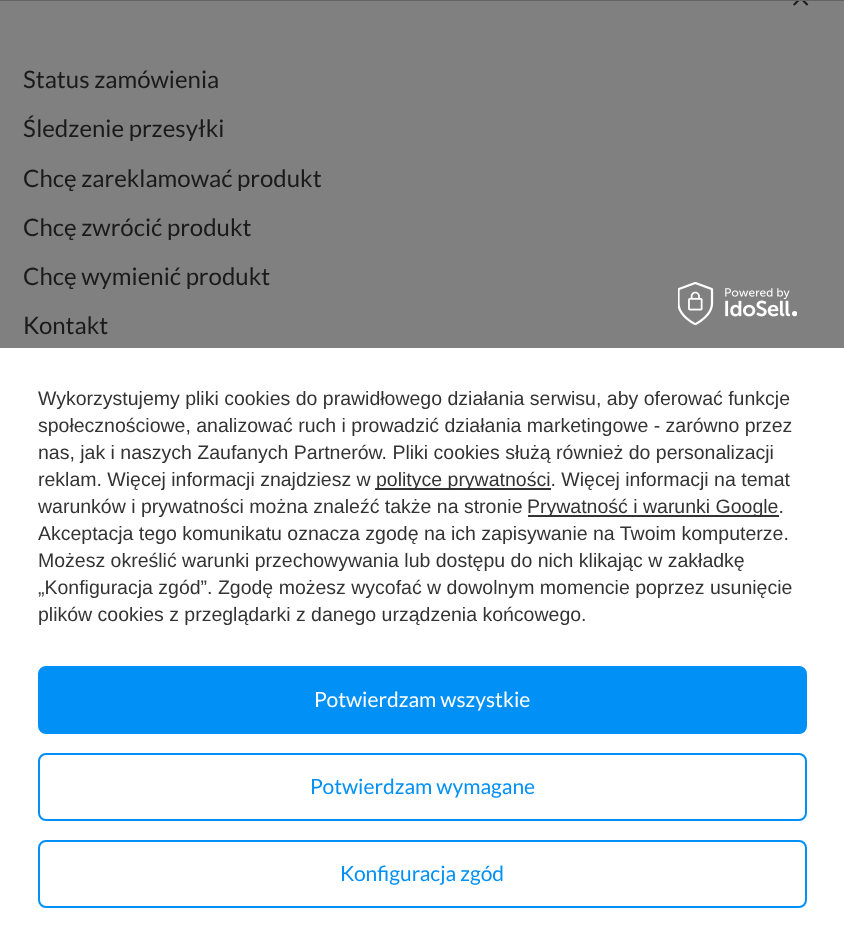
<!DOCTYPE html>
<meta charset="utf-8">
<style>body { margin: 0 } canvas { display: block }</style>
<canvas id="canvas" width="844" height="945"></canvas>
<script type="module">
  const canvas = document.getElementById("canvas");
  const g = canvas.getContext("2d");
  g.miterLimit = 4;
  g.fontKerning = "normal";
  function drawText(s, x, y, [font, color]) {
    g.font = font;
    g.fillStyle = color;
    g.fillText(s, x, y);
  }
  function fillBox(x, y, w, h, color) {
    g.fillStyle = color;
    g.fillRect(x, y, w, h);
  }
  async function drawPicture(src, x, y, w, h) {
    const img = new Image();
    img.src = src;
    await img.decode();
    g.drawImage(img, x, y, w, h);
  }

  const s1 = ["24px Lato", "#1A1A1A"];
  const s2 = ["19.5px Liberation Sans", "#333333"];
  const s3 = ["21px Lato", "#FFFFFF"];
  const s4 = ["21px Lato", "#0090F6"];

  fillBox(0, 0, 844, 945, "#808080");
  fillBox(0, 0, 844, 1, "#626464");
  await drawPicture("pic1.png", 793, 1, 16, 5);
  drawText("Status zamówienia", 23, 88, s1);
  drawText("Śledzenie przesyłki", 23, 137, s1);
  drawText("Chcę zareklamować produkt", 23, 187, s1);
  drawText("Chcę zwrócić produkt", 23, 236, s1);
  drawText("Chcę wymienić produkt", 23, 285, s1);
  drawText("Kontakt", 23, 334, s1);
  fillBox(0, 348, 844, 597, "#FFFFFF");
  await drawPicture("pic2.png", 678, 282, 119, 43);
  drawText("Wykorzystujemy pliki cookies do prawidłowego działania serwisu, aby oferować funkcje", 38, 405, s2);
  drawText("społecznościowe, analizować ruch i prowadzić działania marketingowe - zarówno przez", 38, 432, s2);
  drawText("nas, jak i naszych Zaufanych Partnerów. Pliki cookies służą również do personalizacji", 38, 459, s2);
  drawText("reklam. Więcej informacji znajdziesz w", 38, 486, s2);
  fillBox(375, 488, 176, 2, "#333333");
  drawText("polityce prywatności. Więcej informacji na temat", 376, 486, s2);
  drawText("warunków i prywatności można znaleźć także na stronie", 38, 513, s2);
  fillBox(528, 515, 251, 2, "#333333");
  drawText("Prywatność i warunki Google.", 527, 513, s2);
  drawText("Akceptacja tego komunikatu oznacza zgodę na ich zapisywanie na Twoim komputerze.", 38, 540, s2);
  drawText("Możesz określić warunki przechowywania lub dostępu do nich klikając w zakładkę", 38, 567, s2);
  drawText("„Konfiguracja zgód”. Zgodę możesz wycofać w dowolnym momencie poprzez usunięcie", 38, 594, s2);
  drawText("plików cookies z przeglądarki z danego urządzenia końcowego.", 38, 621, s2);
  g.fillStyle = "#0090F6";
  g.beginPath();
  g.roundRect(39, 667, 767, 66, 7);
  g.fill();
  g.strokeStyle = "#0090F6";
  g.lineWidth = 2;
  g.stroke();
  drawText("Potwierdzam wszystkie", 314, 707, s3);
  g.beginPath();
  g.roundRect(39, 754, 767, 66, 7);
  g.stroke();
  drawText("Potwierdzam wymagane", 310, 794, s4);
  g.beginPath();
  g.roundRect(39, 841, 767, 66, 7);
  g.stroke();
  drawText("Konfiguracja zgód", 340, 881, s4);
</script>
